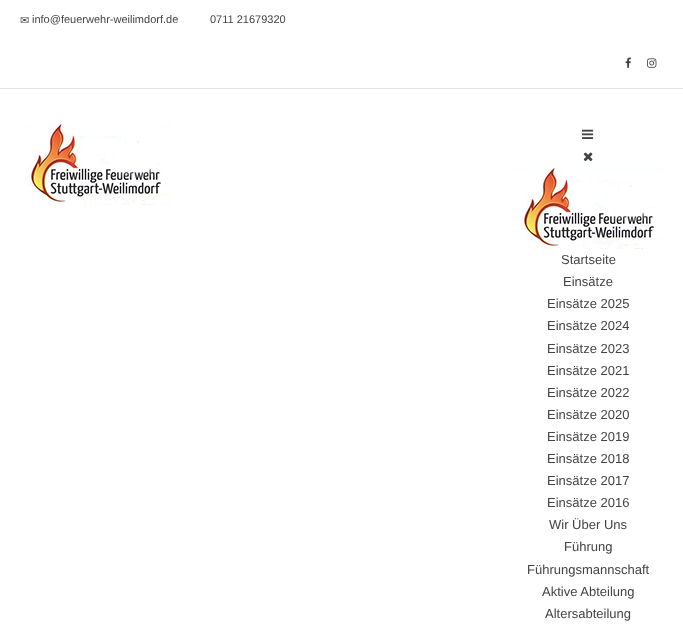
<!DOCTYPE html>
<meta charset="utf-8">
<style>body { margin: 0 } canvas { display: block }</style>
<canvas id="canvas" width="683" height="632"></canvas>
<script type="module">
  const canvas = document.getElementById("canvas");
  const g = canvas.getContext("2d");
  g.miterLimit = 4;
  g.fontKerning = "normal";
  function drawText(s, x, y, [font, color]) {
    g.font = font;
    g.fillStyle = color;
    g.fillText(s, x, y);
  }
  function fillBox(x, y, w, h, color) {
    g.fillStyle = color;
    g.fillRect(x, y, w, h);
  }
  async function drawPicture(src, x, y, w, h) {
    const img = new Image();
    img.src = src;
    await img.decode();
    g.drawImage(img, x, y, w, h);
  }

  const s1 = ["11px DejaVu Sans", "#444444"];
  const s2 = ["11px Liberation Sans", "#444444"];
  const s3 = ["13px Liberation Sans", "#444444"];

  fillBox(0, 0, 683, 632, "#FFFFFF");
  fillBox(0, 88, 683, 1, "#E2E2E2");
  drawText("✉", 20, 24, s1);
  drawText("info@feuerwehr-weilimdorf.de", 32, 23, s2);
  drawText("0711 21679320", 210, 23, s2);
  await drawPicture("pic1.png", 625, 57, 6, 11);
  await drawPicture("pic2.png", 647, 58, 10, 10);
  await drawPicture("pic3.png", 20, 124, 150, 81);
  await drawPicture("pic4.png", 582, 129, 12, 10);
  await drawPicture("pic5.png", 583, 152, 10, 10);
  await drawPicture("pic3.png", 513, 168, 150, 81);
  drawText("Startseite", 561, 264, s3);
  drawText("Einsätze", 563, 286, s3);
  drawText("Einsätze 2025", 547, 308, s3);
  drawText("Einsätze 2024", 547, 330, s3);
  drawText("Einsätze 2023", 547, 353, s3);
  drawText("Einsätze 2021", 547, 375, s3);
  drawText("Einsätze 2022", 547, 397, s3);
  drawText("Einsätze 2020", 547, 419, s3);
  drawText("Einsätze 2019", 547, 441, s3);
  drawText("Einsätze 2018", 547, 463, s3);
  drawText("Einsätze 2017", 547, 485, s3);
  drawText("Einsätze 2016", 547, 507, s3);
  drawText("Wir Über Uns", 549, 529, s3);
  drawText("Führung", 564, 551, s3);
  drawText("Führungsmannschaft", 527, 574, s3);
  drawText("Aktive Abteilung", 542, 596, s3);
  drawText("Altersabteilung", 545, 618, s3);
</script>
